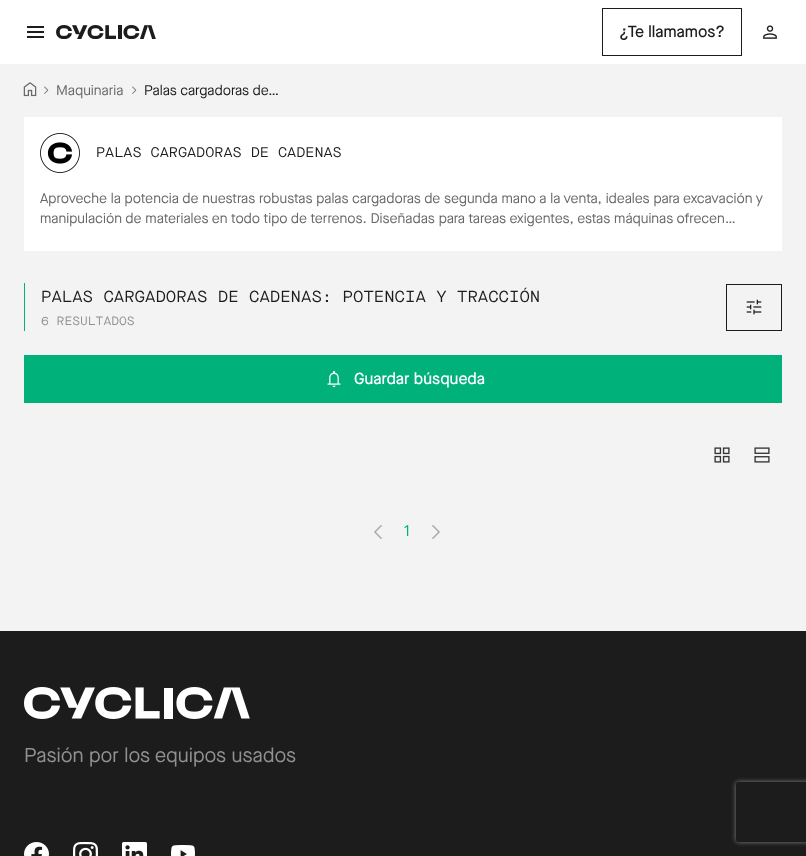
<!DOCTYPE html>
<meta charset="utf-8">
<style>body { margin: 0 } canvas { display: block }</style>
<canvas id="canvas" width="806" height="856"></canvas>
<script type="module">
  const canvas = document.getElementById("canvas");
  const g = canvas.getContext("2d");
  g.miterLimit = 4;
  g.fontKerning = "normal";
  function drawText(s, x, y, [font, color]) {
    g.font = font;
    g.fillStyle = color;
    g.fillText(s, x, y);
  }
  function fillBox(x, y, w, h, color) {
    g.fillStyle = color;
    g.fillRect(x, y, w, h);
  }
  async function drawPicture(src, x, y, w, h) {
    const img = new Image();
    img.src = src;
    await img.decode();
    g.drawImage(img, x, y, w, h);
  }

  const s1 = ["500 16px Maison Neue", "#1C1C1C"];
  const s2 = ["14px Maison Neue", "#696969"];
  const s3 = ["14px Maison Neue", "#1C1C1C"];
  const s4 = ["14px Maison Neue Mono", "#1C1C1C"];
  const s5 = ["16px Maison Neue Mono", "#1C1C1C"];
  const s6 = ["12px Maison Neue Mono", "#919191"];
  const s7 = ["500 16px Maison Neue", "#FFFFFF"];
  const s8 = ["16px Maison Neue", "#00B17A"];
  const s9 = ["20px Maison Neue", "#919191"];

  fillBox(0, 0, 806, 856, "#FFFFFF");
  fillBox(27, 26, 17, 2, "#1C1C1C");
  fillBox(27, 31, 17, 2, "#1C1C1C");
  fillBox(27, 36, 17, 2, "#1C1C1C");
  await drawPicture("pic1.png", 56, 25, 100, 14);
  g.strokeStyle = "#1C1C1C";
  g.strokeRect(602.5, 8.5, 139, 47);
  drawText("¿Te llamamos?", 619, 37, s1);
  await drawPicture("pic2.png", 763, 25, 14, 14);
  fillBox(0, 64, 806, 567, "#F3F3F3");
  await drawPicture("pic3.png", 23, 82, 14, 15);
  await drawPicture("pic4.png", 44, 86, 5, 8);
  drawText("Maquinaria", 56, 95, s2);
  await drawPicture("pic4.png", 132, 86, 5, 8);
  drawText("Palas cargadoras de…", 144, 95, s3);
  fillBox(24, 117, 758, 134, "#FFFFFF");
  await drawPicture("pic5.png", 40, 133, 40, 40);
  drawText("PALAS CARGADORAS DE CADENAS", 96, 157, s4);
  drawText("Aproveche la potencia de nuestras robustas palas cargadoras de segunda mano a la venta, ideales para excavación y", 40, 203, s2);
  drawText("manipulación de materiales en todo tipo de terrenos. Diseñadas para tareas exigentes, estas máquinas ofrecen…", 40, 223, s2);
  fillBox(24, 283, 1, 48, "#00B17A");
  drawText("PALAS CARGADORAS DE CADENAS: POTENCIA Y TRACCIÓN", 41, 302, s5);
  drawText("6 RESULTADOS", 41, 325, s6);
  g.strokeRect(726.5, 284.5, 55, 46);
  await drawPicture("pic6.png", 746, 299, 16, 16);
  fillBox(24, 355, 758, 48, "#00B17A");
  await drawPicture("pic7.png", 327, 371, 14, 17);
  drawText("Guardar búsqueda", 354, 384, s7);
  await drawPicture("pic8.png", 714, 447, 16, 16);
  await drawPicture("pic9.png", 754, 447, 16, 16);
  await drawPicture("pic10.png", 374, 525, 8, 14);
  drawText("1", 404, 536, s8);
  await drawPicture("pic11.png", 432, 525, 8, 14);
  fillBox(0, 631, 806, 225, "#1C1C1C");
  await drawPicture("pic12.png", 24, 687, 226, 32);
  drawText("Pasión por los equipos usados", 24, 762, s9);
  await drawPicture("pic13.png", 24, 842, 25, 14);
  await drawPicture("pic14.png", 73, 842, 25, 14);
  await drawPicture("pic15.png", 122, 842, 25, 14);
  await drawPicture("pic16.png", 171, 845, 24, 11);
  g.save();
  g.beginPath();
  g.moveTo(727, 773);
  g.lineTo(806, 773);
  g.lineTo(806, 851);
  g.lineTo(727, 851);
  g.closePath();
  g.moveTo(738, 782);
  g.lineTo(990, 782);
  g.bezierCurveTo(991, 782, 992, 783, 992, 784);
  g.lineTo(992, 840);
  g.bezierCurveTo(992, 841, 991, 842, 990, 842);
  g.lineTo(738, 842);
  g.bezierCurveTo(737, 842, 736, 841, 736, 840);
  g.lineTo(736, 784);
  g.bezierCurveTo(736, 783, 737, 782, 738, 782);
  g.closePath();
  g.clip("evenodd");
  g.fillStyle = "#808080";
  g.filter = "blur(2.5px)";
  g.beginPath();
  g.roundRect(736, 782, 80, 60, 2);
  g.fill();
  g.filter = "none";
  g.restore();
</script>
